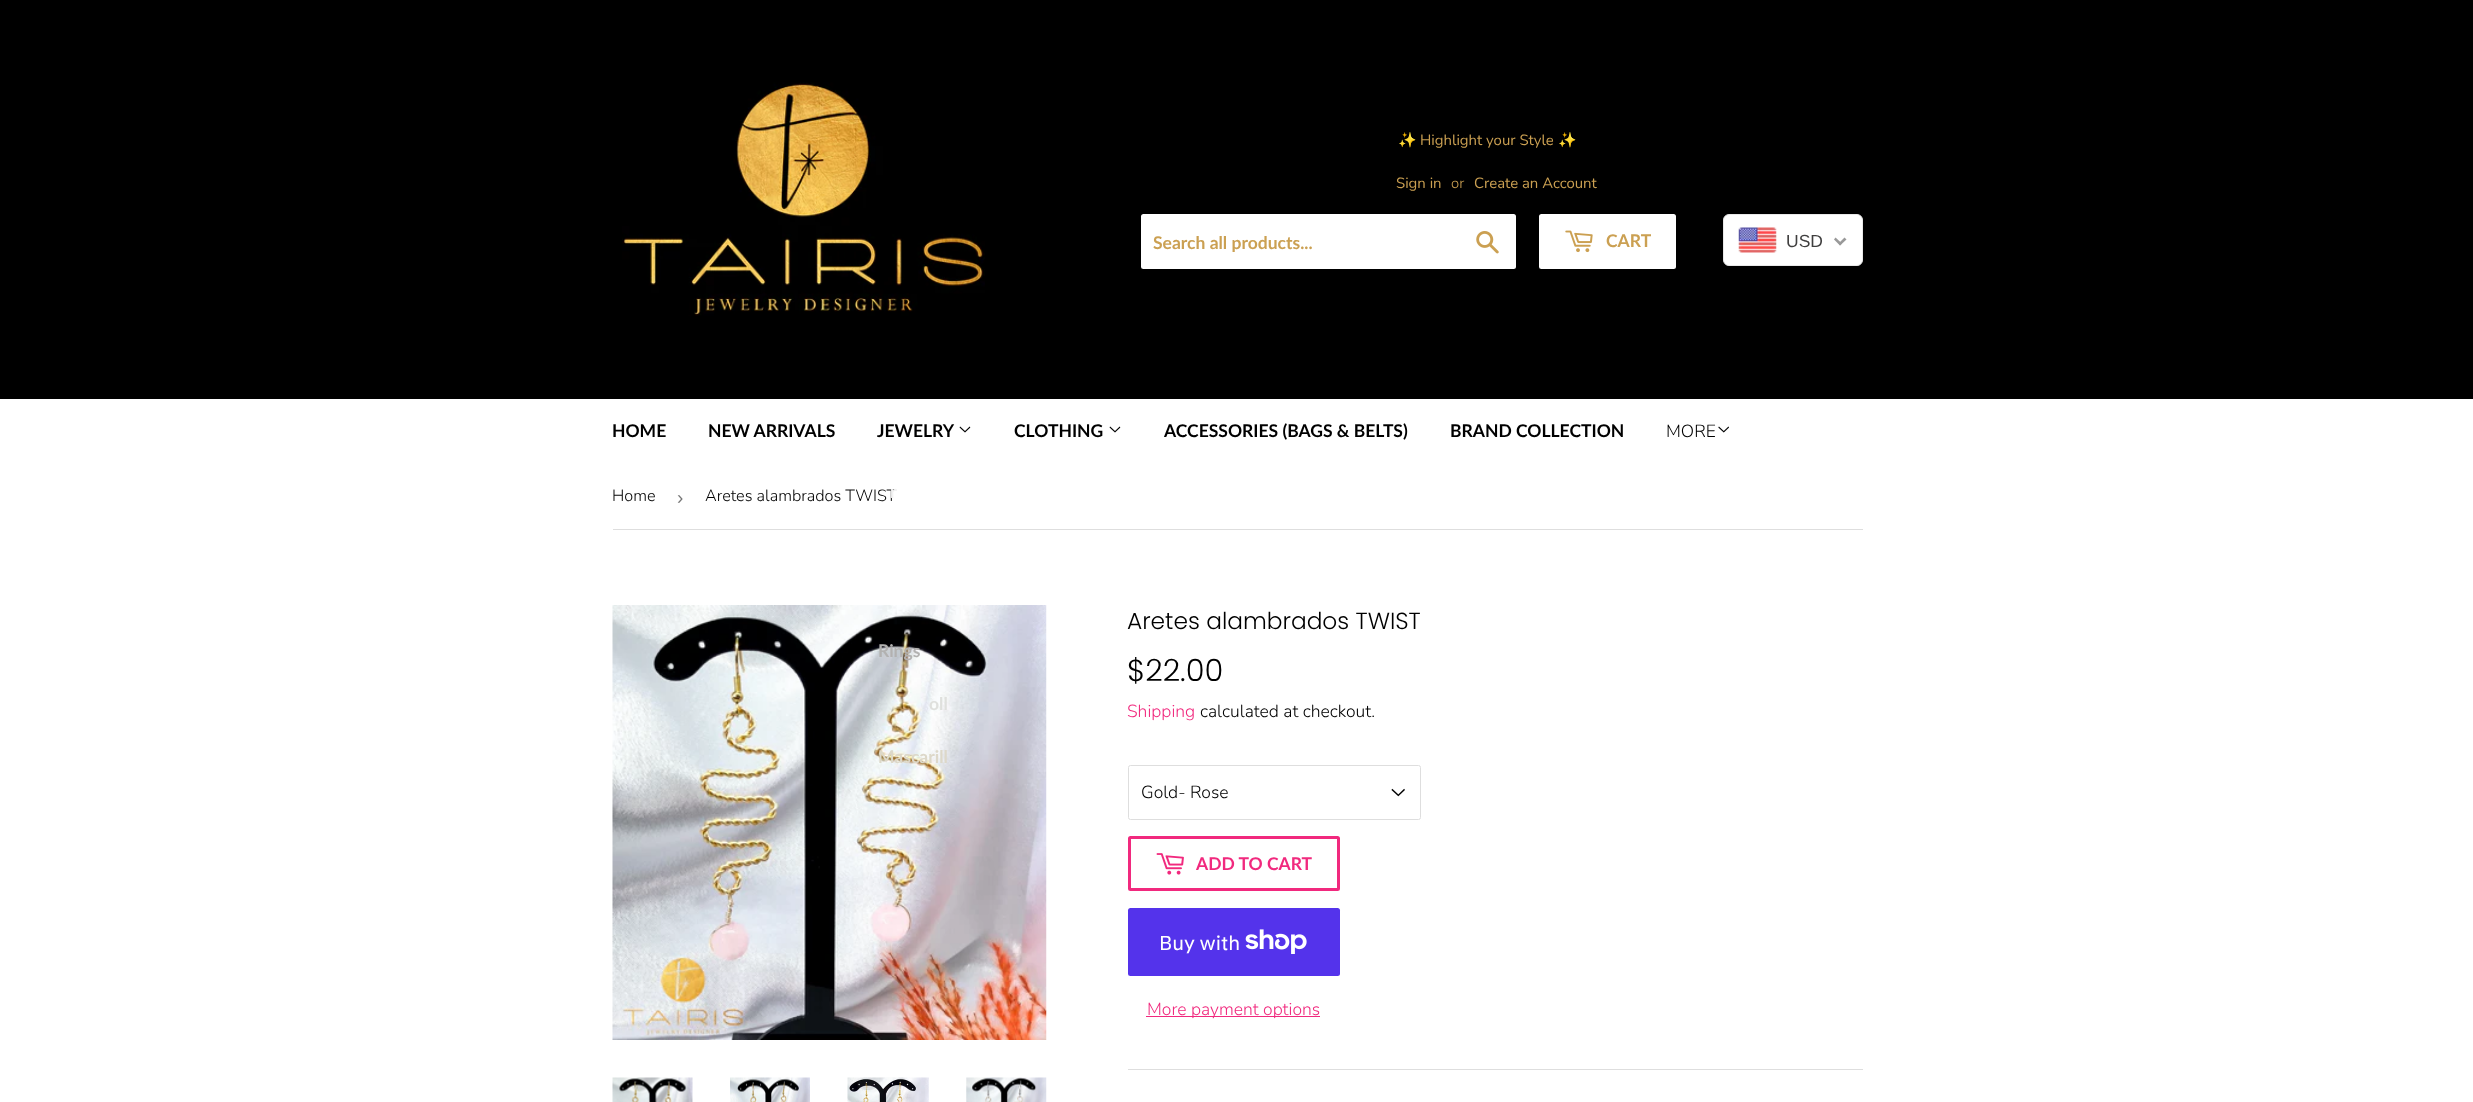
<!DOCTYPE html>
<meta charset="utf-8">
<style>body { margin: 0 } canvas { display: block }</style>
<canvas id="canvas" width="2473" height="1102"></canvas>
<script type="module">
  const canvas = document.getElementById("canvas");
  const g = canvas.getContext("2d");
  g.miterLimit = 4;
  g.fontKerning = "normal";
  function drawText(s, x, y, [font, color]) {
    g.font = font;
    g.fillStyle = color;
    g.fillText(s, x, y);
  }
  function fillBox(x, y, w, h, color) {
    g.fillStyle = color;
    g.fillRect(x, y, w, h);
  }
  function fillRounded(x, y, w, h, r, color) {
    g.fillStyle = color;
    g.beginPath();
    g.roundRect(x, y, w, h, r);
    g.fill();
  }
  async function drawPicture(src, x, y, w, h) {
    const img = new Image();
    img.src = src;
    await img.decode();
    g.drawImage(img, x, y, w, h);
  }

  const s1 = ["14.9px Noto Color Emoji", "#CBA052"];
  const s2 = ["14.9px Nunito", "#CBA052"];
  const s3 = ["300 14.9px Nunito", "#CBA052"];
  const s4 = ["bold 17.5px Lato", "#CBA052"];
  const s5 = ["17.5px Liberation Sans", "#403F3F"];
  const s6 = ["bold 17.5px Lato", "#000000"];
  const s7 = ["300 16.25px Nunito", "#000000"];
  const s8 = ["bold 17.5px Lato", "#F2F2F2"];
  const s9 = ["bold 17.5px Lato", "#B2B1B0"];
  const s10 = ["bold 17.5px Lato", "#DFE0DD"];
  const s11 = ["bold 17.5px Lato", "#DDD8C9"];
  const s12 = ["300 17.5px Nunito", "#000000"];
  const s13 = ["19px Liberation Sans", "#767676"];
  const s14 = ["300 23.3px Poppins", "#000000"];
  const s15 = ["300 30.5px Poppins", "#000000"];
  const s16 = ["300 17.5px Nunito", "#F1297E"];
  const s17 = ["bold 17.5px Lato", "#F1297E"];
  const s18 = ["20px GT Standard", "#FFFFFF"];

  fillBox(0, 0, 2473, 1102, "#FFFFFF");
  fillBox(0, 0, 2473, 399, "#000000");
  await drawPicture("pic1.png", 622, 82, 363, 234);
  drawText("✨", 1398, 145, s1);
  drawText("Highlight your Style", 1420, 145, s2);
  drawText("✨", 1558, 145, s1);
  drawText("Sign in", 1396, 188, s2);
  drawText("or", 1451, 188, s3);
  drawText("Create an Account", 1474, 188, s2);
  fillRounded(1141, 214, 375, 55, 2.5, "#FFFFFF");
  drawText("Search all products...", 1153, 249, s4);
  await drawPicture("pic2.png", 1476, 231, 23, 23);
  fillRounded(1539, 214, 137, 55, 2.5, "#FFFFFF");
  await drawPicture("pic3.png", 1565, 230, 28, 23);
  drawText("CART", 1606, 247, s4);
  g.fillStyle = "#FFFFFF";
  g.beginPath();
  g.roundRect(1723.5, 214.5, 139, 51, 5.5);
  g.fill();
  g.strokeStyle = "#E8E8E8";
  g.stroke();
  await drawPicture("pic4.png", 1738, 227, 39, 26);
  drawText("USD", 1786, 247, s5);
  g.fillStyle = "#999999";
  g.beginPath();
  g.moveTo(1844.5, 237.5);
  g.lineTo(1846.5, 239.5);
  g.lineTo(1840, 245.5);
  g.lineTo(1838.5, 243.5);
  g.closePath();
  g.fill();
  g.beginPath();
  g.moveTo(1835.5, 237.5);
  g.lineTo(1842, 243.5);
  g.lineTo(1840, 245.5);
  g.lineTo(1834, 239.5);
  g.closePath();
  g.fill();
  drawText("HOME", 612, 437, s6);
  drawText("NEW ARRIVALS", 708, 437, s6);
  drawText("JEWELRY", 877, 437, s6);
  await drawPicture("pic5.png", 959, 426, 12, 7);
  drawText("Aretes alambrados TWIST", 705, 501, s7);
  drawText("r", 890, 498, s8);
  await drawPicture("pic7.png", 612, 605, 435, 435);
  drawText("Rings", 878, 657, s9);
  drawText("oll", 929, 710, s10);
  drawText("Mascarill", 878, 763, s11);
  drawText("CLOTHING", 1014, 437, s6);
  await drawPicture("pic5.png", 1109, 426, 12, 7);
  drawText("ACCESSORIES (BAGS & BELTS)", 1164, 437, s6);
  drawText("BRAND COLLECTION", 1450, 437, s6);
  drawText("MORE", 1666, 437, s12);
  await drawPicture("pic6.png", 1718, 426, 11, 7);
  fillBox(613, 529, 1250, 1, "#DEDEDE");
  drawText("Home", 612, 501, s7);
  drawText("›", 677, 504, s13);
  await drawPicture("pic8.png", 612, 1077, 81, 25);
  await drawPicture("pic9.png", 730, 1077, 80, 25);
  await drawPicture("pic10.png", 847, 1077, 82, 25);
  await drawPicture("pic11.png", 966, 1077, 81, 25);
  drawText("Aretes alambrados TWIST", 1127, 629, s14);
  drawText("$22.00", 1127, 681, s15);
  drawText("Shipping", 1127, 717, s16);
  drawText("calculated at checkout.", 1200, 717, s12);
  await drawPicture("pic12.png", 1391, 788, 14, 9);
  g.beginPath();
  g.roundRect(1128.5, 765.5, 292, 54, 2);
  g.strokeStyle = "#DEDEDE";
  g.stroke();
  drawText("Gold- Rose", 1141, 798, s12);
  g.beginPath();
  g.roundRect(1129.5, 837.5, 209, 52, 1);
  g.strokeStyle = "#F1297E";
  g.lineWidth = 3;
  g.stroke();
  await drawPicture("pic13.png", 1156, 853, 28, 22);
  drawText("ADD TO CART", 1196, 870, s17);
  fillRounded(1128, 908, 212, 68, 2.5, "#5433EB");
  drawText("Buy with", 1159, 950, s18);
  await drawPicture("pic14.png", 1245, 929, 62, 25);
  fillBox(1146, 1016, 174, 1, "#F1297E");
  drawText("More payment options", 1147, 1015, s16);
  fillBox(1128, 1069, 735, 1, "#DEDEDE");
</script>
